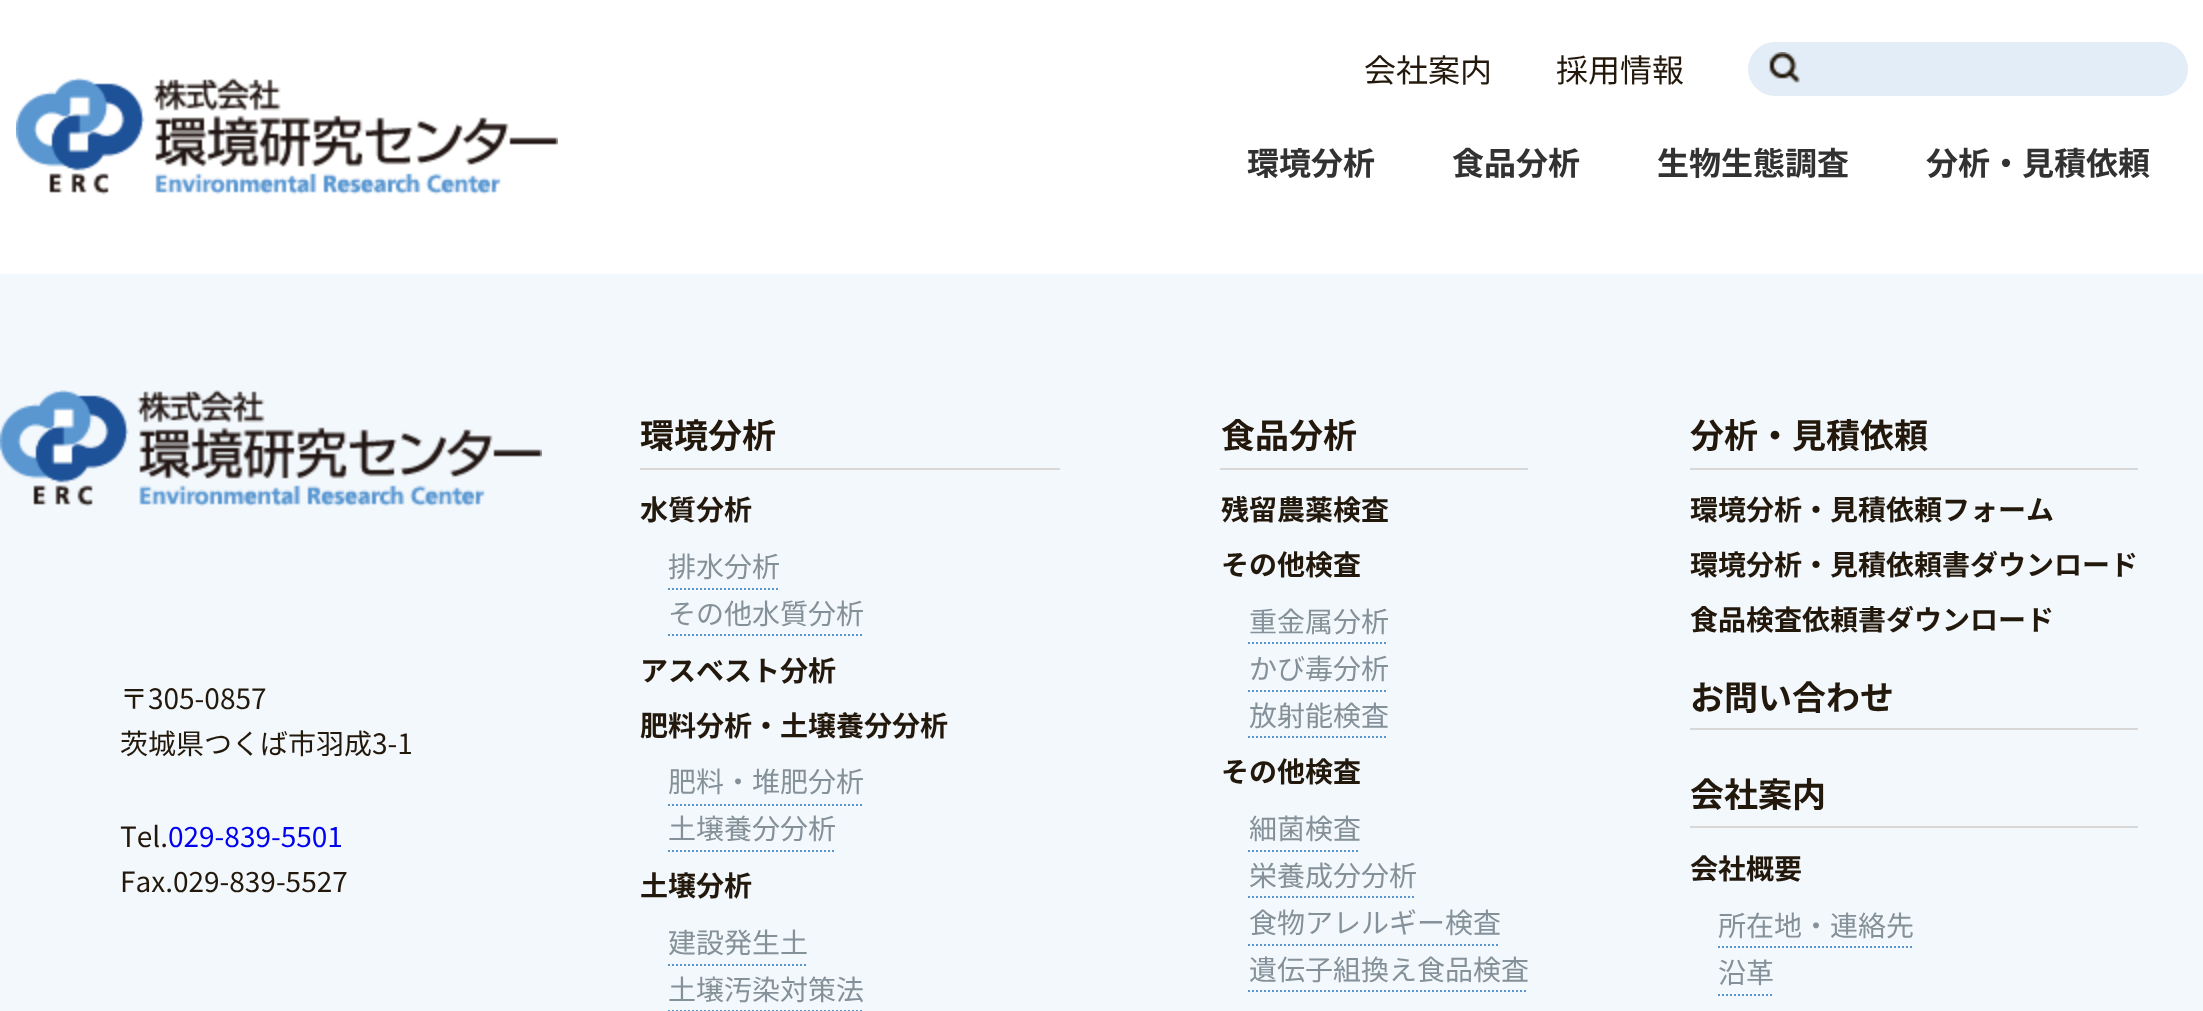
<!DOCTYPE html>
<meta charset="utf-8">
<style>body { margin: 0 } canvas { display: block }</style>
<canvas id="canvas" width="2203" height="1011"></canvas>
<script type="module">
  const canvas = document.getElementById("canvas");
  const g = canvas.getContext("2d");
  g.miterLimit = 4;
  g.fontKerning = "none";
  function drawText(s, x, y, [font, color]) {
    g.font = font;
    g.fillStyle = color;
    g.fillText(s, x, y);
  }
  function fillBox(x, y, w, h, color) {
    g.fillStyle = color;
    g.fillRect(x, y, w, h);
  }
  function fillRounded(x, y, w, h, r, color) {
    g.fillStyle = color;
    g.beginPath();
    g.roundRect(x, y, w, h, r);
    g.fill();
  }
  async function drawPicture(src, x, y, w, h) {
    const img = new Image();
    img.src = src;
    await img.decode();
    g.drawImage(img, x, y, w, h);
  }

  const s1 = ["32px Noto Sans JP", "#23180C"];
  const s2 = ["bold 32px Noto Sans JP", "#323232"];
  const s3 = ["28px Noto Sans JP", "#23180C"];
  const s4 = ["28px Noto Sans JP", "#0000EE"];
  const s5 = ["bold 34px Noto Sans JP", "#23180C"];
  const s6 = ["bold 28px Noto Sans JP", "#23180C"];
  const s7 = ["28px Noto Sans JP", "#859199"];

  fillBox(0, 0, 2203, 1011, "#F3F8FC");
  fillBox(0, 0, 2203, 274, "#FFFFFF");
  await drawPicture("pic1.png", 16, 78, 542, 117);
  drawText("会社案内", 1364, 82, s1);
  drawText("採用情報", 1556, 82, s1);
  fillRounded(1748, 42, 440, 54, 27, "#E3EDF7");
  await drawPicture("pic2.png", 1769, 52, 31, 31);
  drawText("環境分析", 1247, 175, s2);
  drawText("食品分析", 1452, 175, s2);
  drawText("生物生態調査", 1657, 175, s2);
  drawText("分析・見積依頼", 1926, 175, s2);
  await drawPicture("pic3.png", 0, 390, 542, 116);
  drawText("〒305-0857", 120, 709, s3);
  drawText("茨城県つくば市羽成3-1", 120, 754, s3);
  drawText("Tel.", 120, 847, s3);
  drawText("029-839-5501", 168, 847, s4);
  drawText("Fax.029-839-5527", 120, 892, s3);
  fillBox(640, 468, 420, 2, "#DAD8D6");
  drawText("環境分析", 640, 448, s5);
  drawText("水質分析", 640, 520, s6);
  g.beginPath();
  g.moveTo(668, 589);
  g.lineTo(780, 589);
  g.strokeStyle = "#5A97D1";
  g.lineWidth = 2;
  g.setLineDash([2, 2]);
  g.stroke();
  drawText("排水分析", 668, 577, s7);
  g.beginPath();
  g.moveTo(668, 635);
  g.lineTo(864, 635);
  g.stroke();
  drawText("その他水質分析", 668, 624, s7);
  drawText("アスベスト分析", 640, 681, s6);
  drawText("肥料分析・土壌養分分析", 640, 736, s6);
  g.beginPath();
  g.moveTo(668, 805);
  g.lineTo(864, 805);
  g.stroke();
  drawText("肥料・堆肥分析", 668, 792, s7);
  g.beginPath();
  g.moveTo(668, 851);
  g.lineTo(836, 851);
  g.stroke();
  drawText("土壌養分分析", 668, 839, s7);
  drawText("土壌分析", 640, 896, s6);
  g.beginPath();
  g.moveTo(668, 965);
  g.lineTo(808, 965);
  g.stroke();
  drawText("建設発生土", 668, 953, s7);
  g.beginPath();
  g.moveTo(668, 1011);
  g.lineTo(864, 1011);
  g.stroke();
  drawText("土壌汚染対策法", 668, 1000, s7);
  fillBox(1220, 468, 308, 2, "#DAD8D6");
  drawText("食品分析", 1221, 448, s5);
  drawText("残留農薬検査", 1221, 520, s6);
  drawText("その他検査", 1221, 575, s6);
  g.beginPath();
  g.moveTo(1248, 643);
  g.lineTo(1388, 643);
  g.stroke();
  drawText("重金属分析", 1249, 632, s7);
  g.beginPath();
  g.moveTo(1248, 691);
  g.lineTo(1388, 691);
  g.stroke();
  drawText("かび毒分析", 1249, 679, s7);
  g.beginPath();
  g.moveTo(1248, 737);
  g.lineTo(1388, 737);
  g.stroke();
  drawText("放射能検査", 1249, 726, s7);
  drawText("その他検査", 1221, 782, s6);
  g.beginPath();
  g.moveTo(1248, 851);
  g.lineTo(1360, 851);
  g.stroke();
  drawText("細菌検査", 1249, 839, s7);
  g.beginPath();
  g.moveTo(1248, 897);
  g.lineTo(1416, 897);
  g.stroke();
  drawText("栄養成分分析", 1249, 886, s7);
  g.beginPath();
  g.moveTo(1248, 945);
  g.lineTo(1500, 945);
  g.stroke();
  drawText("食物アレルギー検査", 1249, 933, s7);
  g.beginPath();
  g.moveTo(1248, 991);
  g.lineTo(1528, 991);
  g.stroke();
  drawText("遺伝子組換え食品検査", 1249, 980, s7);
  fillBox(1690, 468, 448, 2, "#DAD8D6");
  drawText("分析・見積依頼", 1690, 448, s5);
  drawText("環境分析・見積依頼フォーム", 1690, 520, s6);
  drawText("環境分析・見積依頼書ダウンロード", 1690, 575, s6);
  drawText("食品検査依頼書ダウンロード", 1690, 630, s6);
  fillBox(1690, 728, 448, 2, "#DAD8D6");
  drawText("お問い合わせ", 1690, 710, s5);
  fillBox(1690, 826, 448, 2, "#DAD8D6");
  drawText("会社案内", 1690, 807, s5);
  drawText("会社概要", 1690, 879, s6);
  g.beginPath();
  g.moveTo(1718, 947);
  g.lineTo(1914, 947);
  g.stroke();
  drawText("所在地・連絡先", 1718, 936, s7);
  g.beginPath();
  g.moveTo(1718, 995);
  g.lineTo(1774, 995);
  g.stroke();
  drawText("沿革", 1718, 983, s7);
</script>
